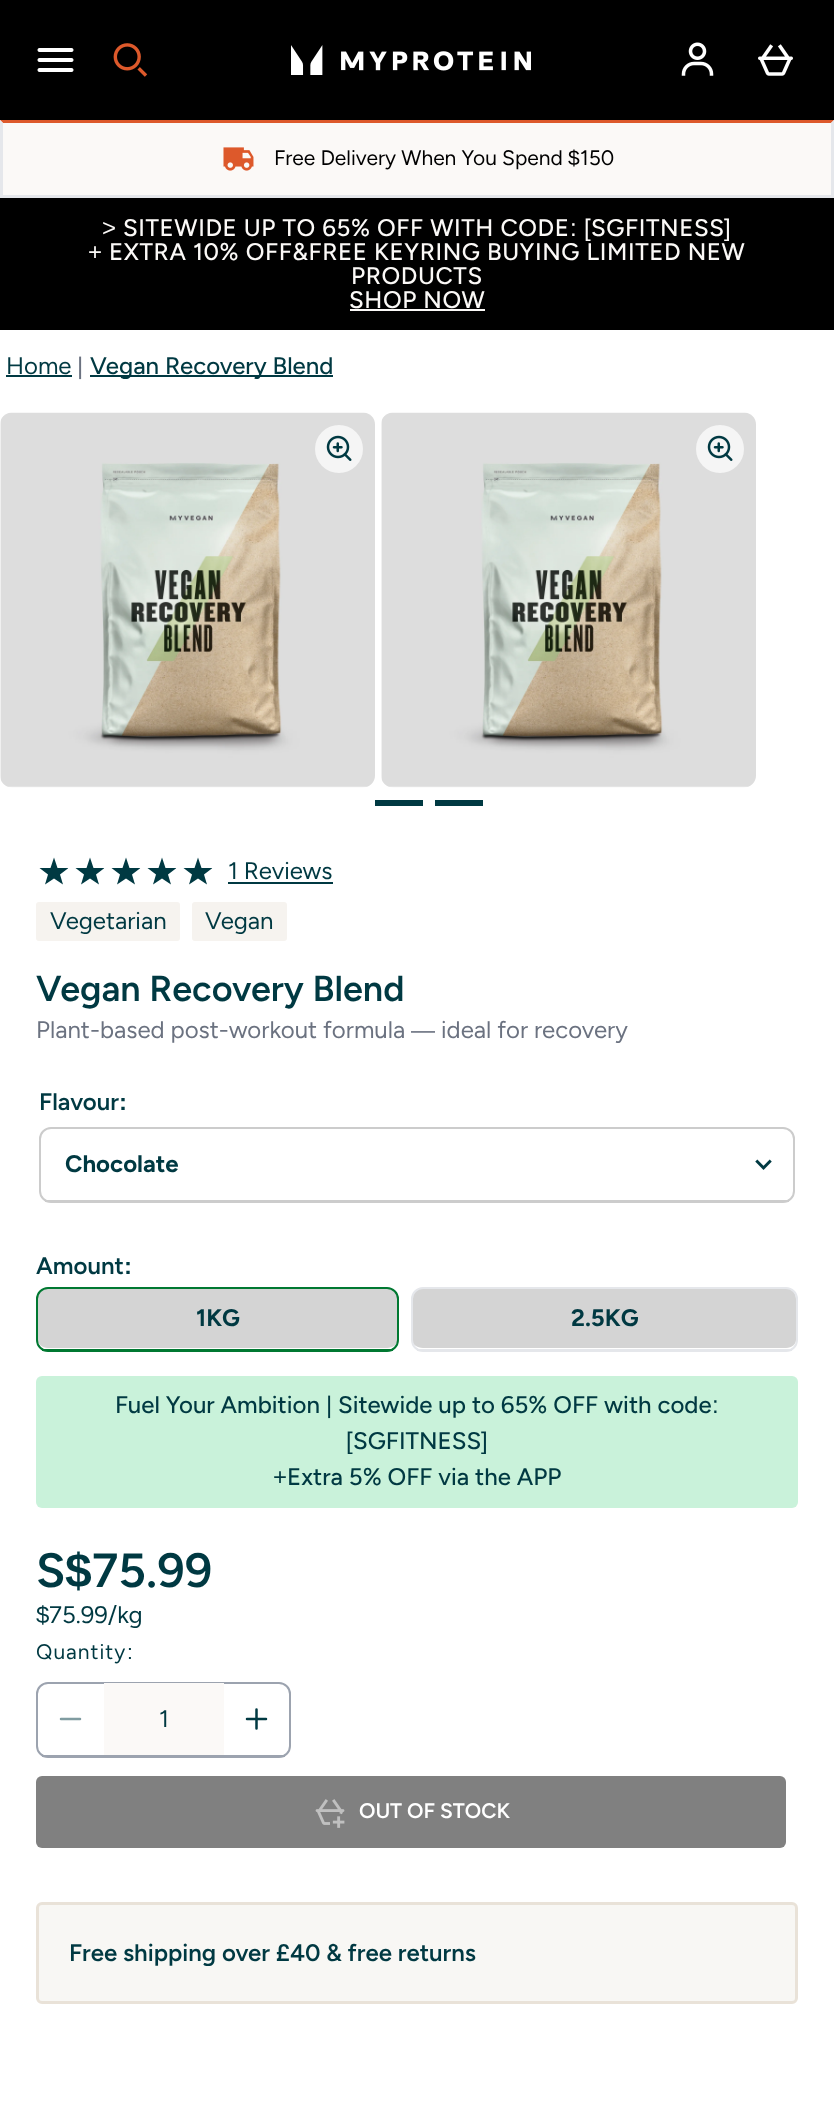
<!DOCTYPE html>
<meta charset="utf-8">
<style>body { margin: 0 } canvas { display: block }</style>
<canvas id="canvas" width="834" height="2118"></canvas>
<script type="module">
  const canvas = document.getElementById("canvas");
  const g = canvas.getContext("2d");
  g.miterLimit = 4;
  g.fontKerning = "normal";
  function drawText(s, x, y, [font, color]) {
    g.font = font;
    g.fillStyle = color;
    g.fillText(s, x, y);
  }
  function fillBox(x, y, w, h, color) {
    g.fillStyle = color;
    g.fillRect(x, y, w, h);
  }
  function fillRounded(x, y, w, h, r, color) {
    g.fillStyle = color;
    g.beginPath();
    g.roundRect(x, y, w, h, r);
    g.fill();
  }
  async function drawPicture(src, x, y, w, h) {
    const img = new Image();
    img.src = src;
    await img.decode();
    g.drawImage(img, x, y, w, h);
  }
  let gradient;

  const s1 = ["21px Figtree", "#000000"];
  const s2 = ["21px Liberation Sans", "#000000"];
  const s3 = ["24px Liberation Sans", "#FBF9F7"];
  const s4 = ["500 24px Figtree", "#FBF9F7"];
  const s5 = ["24px Figtree", "#003942"];
  const s6 = ["24px Liberation Sans", "#6B7280"];
  const s7 = ["500 24px Figtree", "#003942"];
  const s8 = ["600 36px Figtree", "#003942"];
  const s9 = ["24px Figtree", "#6B7280"];
  const s10 = ["600 24px Figtree", "#003942"];
  const s11 = ["bold 24px Liberation Sans", "#003942"];
  const s12 = ["bold 24px Figtree", "#003942"];
  const s13 = ["24px Liberation Sans", "#003942"];
  const s14 = ["600 48px Figtree", "#003942"];
  const s15 = ["bold 48px Liberation Sans", "#003942"];
  const s16 = ["21px Figtree", "#003942"];
  const s17 = ["21px Liberation Sans", "#003942"];
  const s18 = ["600 21px Figtree", "#FFFFFF"];

  fillBox(0, 0, 834, 2118, "#FFFFFF");
  fillBox(0, 0, 834, 120, "#000000");
  await drawPicture("pic1.png", 37, 48, 37, 24);
  await drawPicture("pic2.png", 113, 43, 35, 34);
  await drawPicture("pic3.png", 291, 45, 240, 30);
  await drawPicture("pic4.png", 681, 42, 33, 34);
  await drawPicture("pic5.png", 758, 44, 35, 32);
  fillBox(0, 120, 834, 75, "#FBF9F7");
  g.fillStyle = "#DD592B";
  g.beginPath();
  g.moveTo(0, 120);
  g.lineTo(834, 120);
  g.lineTo(831, 123);
  g.lineTo(3, 123);
  g.closePath();
  g.fill();
  g.fillStyle = "#E5E7EB";
  g.beginPath();
  g.moveTo(834, 120);
  g.lineTo(834, 198);
  g.lineTo(831, 195);
  g.lineTo(831, 123);
  g.closePath();
  g.fill();
  fillBox(0, 195, 834, 3, "#E5E7EB");
  g.beginPath();
  g.moveTo(0, 198);
  g.lineTo(0, 120);
  g.lineTo(3, 123);
  g.lineTo(3, 195);
  g.closePath();
  g.fill();
  await drawPicture("pic6.png", 223, 147, 31, 24);
  drawText("Free Delivery When You Spend", 274, 165, s1);
  drawText("$", 568, 165, s2);
  drawText("150", 580, 165, s1);
  fillBox(0, 198, 834, 132, "#000000");
  g.letterSpacing = "0.6px";
  drawText(">", 102, 236, s3);
  drawText("SITEWIDE UP TO 65% OFF WITH CODE", 123, 236, s4);
  drawText(":", 570, 236, s3);
  drawText("[", 584, 236, s3);
  drawText("SGFITNESS", 591, 236, s4);
  drawText("]", 724, 236, s3);
  drawText("+", 88, 260, s3);
  drawText("EXTRA 10% OFF&FREE KEYRING BUYING LIMITED NEW", 109, 260, s4);
  drawText("PRODUCTS", 351, 284, s4);
  drawText("SHOP NOW", 349, 308, s4);
  fillBox(350, 309, 135, 2, "#FBF9F7");
  g.letterSpacing = "0px";
  drawText("Home", 6, 374, s5);
  fillBox(6, 375, 66, 2, "#003942");
  drawText("|", 77, 374, s6);
  fillBox(90, 375, 243, 2, "#003942");
  drawText("Vegan Recovery Blend", 90, 374, s7);
  await drawPicture("pic7.png", 0, 412, 375, 376);
  g.fillStyle = "#F5F5F5";
  g.beginPath();
  g.arc(339, 449, 24, 0, Math.PI * 2);
  g.fill();
  await drawPicture("pic8.png", 326, 435, 26, 26);
  await drawPicture("pic9.png", 381, 412, 375, 376);
  g.beginPath();
  g.arc(720, 449, 24, 0, Math.PI * 2);
  g.fill();
  await drawPicture("pic8.png", 707, 435, 26, 26);
  fillBox(375, 800, 48, 6, "#003942");
  fillBox(435, 800, 48, 6, "#003942");
  gradient = g.createLinearGradient(40, 858, 68, 858);
  gradient.addColorStop(1, "#003942");
  gradient.addColorStop(1, "#CCCCCC");
  g.fillStyle = gradient;
  g.beginPath();
  g.moveTo(54, 857.5);
  g.lineTo(57.5, 868);
  g.lineTo(68.5, 868);
  g.lineTo(60, 874.5);
  g.lineTo(63, 884.5);
  g.lineTo(54, 878.5);
  g.lineTo(45, 884.5);
  g.lineTo(48, 874.5);
  g.lineTo(39.5, 868);
  g.lineTo(50.5, 868);
  g.closePath();
  g.fill();
  gradient = g.createLinearGradient(76, 858, 104, 858);
  gradient.addColorStop(1, "#003942");
  gradient.addColorStop(1, "#CCCCCC");
  g.fillStyle = gradient;
  g.beginPath();
  g.moveTo(90, 857.5);
  g.lineTo(93.5, 868);
  g.lineTo(104.5, 868);
  g.lineTo(96, 874.5);
  g.lineTo(99, 884.5);
  g.lineTo(90, 878.5);
  g.lineTo(81, 884.5);
  g.lineTo(84, 874.5);
  g.lineTo(75.5, 868);
  g.lineTo(86.5, 868);
  g.closePath();
  g.fill();
  gradient = g.createLinearGradient(112, 858, 140, 858);
  gradient.addColorStop(1, "#003942");
  gradient.addColorStop(1, "#CCCCCC");
  g.fillStyle = gradient;
  g.beginPath();
  g.moveTo(126, 857.5);
  g.lineTo(129.5, 868);
  g.lineTo(140.5, 868);
  g.lineTo(132, 874.5);
  g.lineTo(135, 884.5);
  g.lineTo(126, 878.5);
  g.lineTo(117, 884.5);
  g.lineTo(120, 874.5);
  g.lineTo(111.5, 868);
  g.lineTo(122.5, 868);
  g.closePath();
  g.fill();
  gradient = g.createLinearGradient(148, 858, 176, 858);
  gradient.addColorStop(1, "#003942");
  gradient.addColorStop(1, "#CCCCCC");
  g.fillStyle = gradient;
  g.beginPath();
  g.moveTo(162, 857.5);
  g.lineTo(165.5, 868);
  g.lineTo(176.5, 868);
  g.lineTo(168, 874.5);
  g.lineTo(171, 884.5);
  g.lineTo(162, 878.5);
  g.lineTo(153, 884.5);
  g.lineTo(156, 874.5);
  g.lineTo(147.5, 868);
  g.lineTo(158.5, 868);
  g.closePath();
  g.fill();
  gradient = g.createLinearGradient(184, 858, 212, 858);
  gradient.addColorStop(1, "#003942");
  gradient.addColorStop(1, "#CCCCCC");
  g.fillStyle = gradient;
  g.beginPath();
  g.moveTo(198, 857.5);
  g.lineTo(201.5, 868);
  g.lineTo(212.5, 868);
  g.lineTo(204, 874.5);
  g.lineTo(207, 884.5);
  g.lineTo(198, 878.5);
  g.lineTo(189, 884.5);
  g.lineTo(192, 874.5);
  g.lineTo(183.5, 868);
  g.lineTo(194.5, 868);
  g.closePath();
  g.fill();
  drawText("1 Reviews", 228, 879, s5);
  fillBox(228, 882, 105, 2, "#003942");
  g.fillStyle = "#F6F3EF";
  g.beginPath();
  g.roundRect(37, 903, 142, 37, 2);
  g.fill();
  g.strokeStyle = "#F6F3EF";
  g.lineWidth = 2;
  g.stroke();
  drawText("Vegetarian", 50, 929, s5);
  g.fillStyle = "#F6F3EF";
  g.beginPath();
  g.roundRect(193, 903, 93, 37, 2);
  g.fill();
  g.stroke();
  drawText("Vegan", 205, 929, s5);
  drawText("Vegan Recovery Blend", 36, 1001, s8);
  drawText("Plant-based post-workout formula", 36, 1038, s9);
  drawText("—", 411, 1038, s6);
  drawText("ideal for recovery", 441, 1038, s9);
  drawText("Flavour", 39, 1110, s10);
  drawText(":", 119, 1110, s11);
  await drawPicture("pic10.png", 755, 1159, 17, 11);
  g.beginPath();
  g.roundRect(40, 1128, 754, 74, 11);
  g.strokeStyle = "#CCCCCC";
  g.stroke();
  fillBox(45, 1200, 744, 2, "#CCCCCC");
  drawText("Chocolate", 65, 1172, s12);
  drawText("Amount", 36, 1274, s10);
  drawText(":", 124, 1274, s11);
  g.fillStyle = "#D4D4D4";
  g.beginPath();
  g.moveTo(48, 1288);
  g.lineTo(387, 1288);
  g.bezierCurveTo(393, 1288, 398, 1293, 398, 1299);
  g.lineTo(398, 1340);
  g.bezierCurveTo(398, 1344, 393, 1348, 387, 1348);
  g.lineTo(48, 1348);
  g.bezierCurveTo(42, 1348, 38, 1344, 38, 1340);
  g.lineTo(38, 1299);
  g.bezierCurveTo(38, 1293, 42, 1288, 48, 1288);
  g.closePath();
  g.fill();
  g.beginPath();
  g.roundRect(37, 1288, 361, 63, 11);
  g.strokeStyle = "#007831";
  g.stroke();
  fillBox(42, 1349, 351, 2, "#007831");
  drawText("1KG", 196, 1326, s12);
  g.fillStyle = "#D4D4D4";
  g.beginPath();
  g.moveTo(423, 1288);
  g.lineTo(786, 1288);
  g.bezierCurveTo(792, 1288, 796, 1293, 796, 1299);
  g.lineTo(796, 1340);
  g.bezierCurveTo(796, 1344, 792, 1348, 786, 1348);
  g.lineTo(423, 1348);
  g.bezierCurveTo(417, 1348, 412, 1344, 412, 1340);
  g.lineTo(412, 1299);
  g.bezierCurveTo(412, 1293, 417, 1288, 423, 1288);
  g.closePath();
  g.fill();
  g.beginPath();
  g.roundRect(412, 1288, 385, 63, 11);
  g.strokeStyle = "#E5E7EB";
  g.stroke();
  fillBox(417, 1349, 375, 2, "#E5E7EB");
  drawText("2.5KG", 571, 1326, s12);
  fillRounded(36, 1376, 762, 132, 6, "#C9F2DA");
  drawText("Fuel Your Ambition", 115, 1413, s7);
  drawText("|", 326, 1413, s13);
  drawText("Sitewide up to 65% OFF with code", 338, 1413, s7);
  drawText(":", 712, 1413, s13);
  drawText("[", 346, 1449, s13);
  drawText("SGFITNESS", 353, 1449, s7);
  drawText("]", 481, 1449, s13);
  drawText("+", 273, 1485, s13);
  drawText("Extra 5% OFF via the APP", 287, 1485, s7);
  drawText("S", 36, 1587, s14);
  drawText("$", 65, 1587, s15);
  drawText("75.99", 92, 1587, s14);
  drawText("$", 36, 1623, s13);
  drawText("75.99/kg", 49, 1623, s5);
  g.letterSpacing = "1px";
  drawText("Quantity", 36, 1659, s16);
  drawText(":", 127, 1659, s17);
  g.beginPath();
  g.roundRect(37, 1683, 253, 74, 11);
  g.strokeStyle = "#9CA3AF";
  g.stroke();
  fillBox(42, 1755, 243, 2, "#9CA3AF");
  g.beginPath();
  g.moveTo(80, 1719);
  g.lineTo(61, 1719);
  g.strokeStyle = "#809CA1";
  g.lineWidth = 2.5;
  g.lineCap = "round";
  g.lineJoin = "round";
  g.stroke();
  fillBox(104, 1683, 120, 72, "#FBF9F7");
  g.letterSpacing = "0px";
  drawText("1", 159, 1727, s5);
  g.beginPath();
  g.moveTo(256.5, 1709.5);
  g.lineTo(256.5, 1728.5);
  g.moveTo(266, 1719);
  g.lineTo(247, 1719);
  g.strokeStyle = "#003942";
  g.stroke();
  fillRounded(36, 1776, 750, 72, 6, "#808080");
  await drawPicture("pic11.png", 315, 1799, 30, 29);
  drawText("OUT OF STOCK", 359, 1818, s18);
  g.fillStyle = "#F8F7F4";
  g.beginPath();
  g.roundRect(37.5, 1903.5, 759, 99, 4.5);
  g.fill();
  g.strokeStyle = "#E9E2D8";
  g.lineWidth = 3;
  g.lineJoin = "miter";
  g.stroke();
  drawText("Free shipping over £40 & free returns", 69, 1961, s10);
</script>
